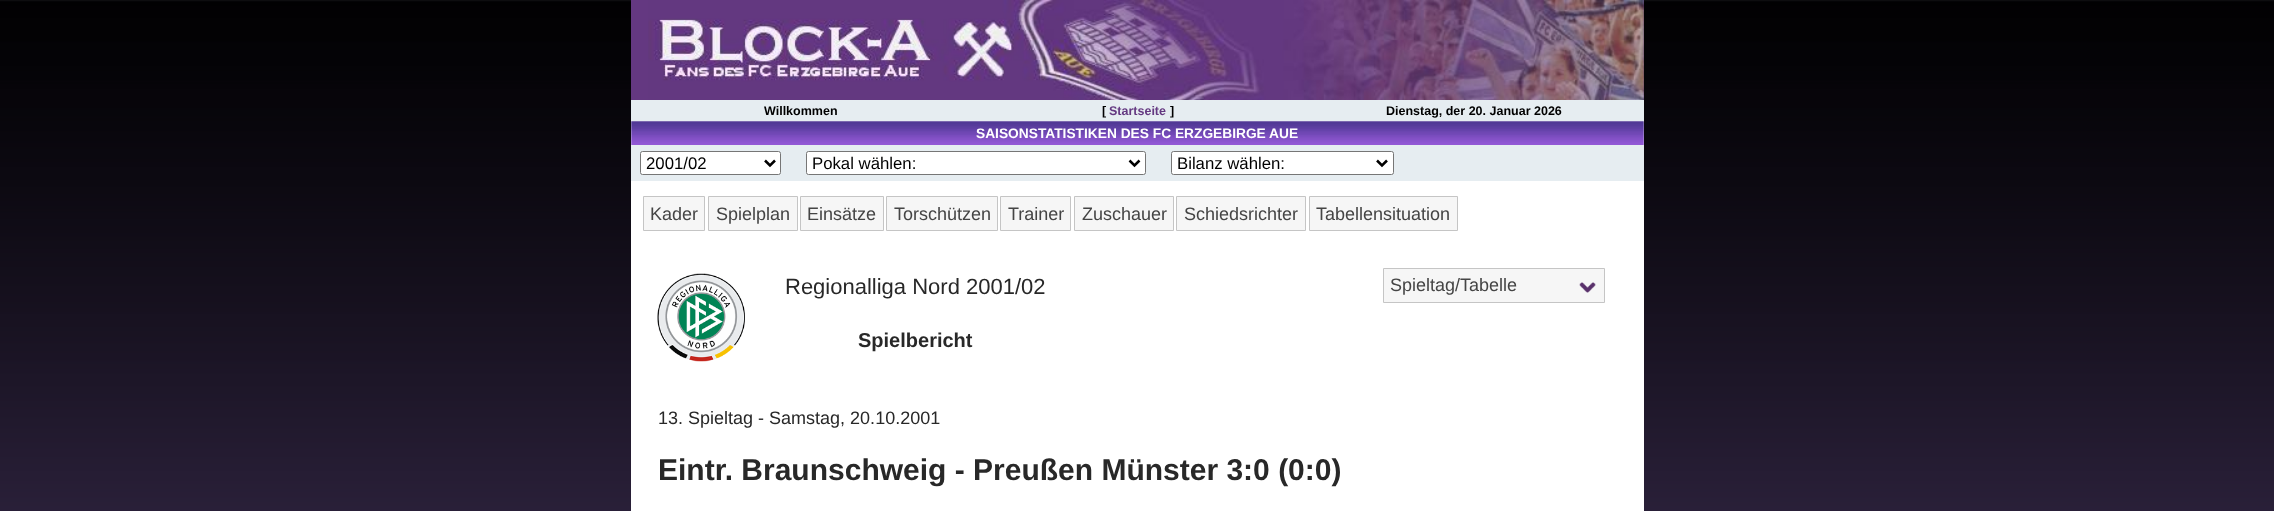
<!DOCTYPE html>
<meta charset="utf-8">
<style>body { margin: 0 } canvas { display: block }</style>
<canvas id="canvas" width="2274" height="511"></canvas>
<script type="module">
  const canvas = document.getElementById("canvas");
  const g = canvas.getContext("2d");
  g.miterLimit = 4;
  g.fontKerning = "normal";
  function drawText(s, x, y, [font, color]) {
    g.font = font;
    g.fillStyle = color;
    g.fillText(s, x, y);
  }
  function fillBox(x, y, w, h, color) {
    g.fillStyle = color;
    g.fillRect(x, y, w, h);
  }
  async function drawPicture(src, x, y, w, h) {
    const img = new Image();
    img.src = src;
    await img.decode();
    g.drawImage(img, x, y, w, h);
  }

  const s1 = ["bold 12.5px Liberation Sans", "#000000"];
  const s2 = ["bold 12.5px Liberation Sans", "#643881"];
  const s3 = ["bold 13.75px Liberation Sans", "#FFFFFF"];
  const s4 = ["16.75px Liberation Sans", "#000000"];
  const s5 = ["18px Liberation Sans", "#454545"];
  const s6 = ["22px Liberation Sans", "#282828"];
  const s7 = ["bold 20px Liberation Sans", "#282828"];
  const s8 = ["18px Liberation Sans", "#282828"];
  const s9 = ["bold 30px Liberation Sans", "#282828"];

  fillBox(0, 0, 2274, 511, "#FFFFFF");
  await drawPicture("pic1.png", 0, 0, 2274, 511);
  fillBox(631, 0, 1013, 100, "#643881");
  await drawPicture("pic2.png", 648, 0, 996, 100);
  fillBox(631, 100, 1013, 21, "#E6EDF1");
  drawText("Willkommen", 764, 115, s1);
  drawText("[", 1102, 115, s1);
  drawText("Startseite", 1109, 115, s2);
  drawText("]", 1170, 115, s1);
  drawText("Dienstag, der 20. Januar 2026", 1386, 115, s1);
  fillBox(631, 121, 1013, 390, "#FFFFFF");
  await drawPicture("pic3.png", 631, 121, 1013, 24);
  drawText("SAISONSTATISTIKEN DES FC ERZGEBIRGE AUE", 976, 138, s3);
  fillBox(631, 145, 1013, 36, "#E6EDF1");
  g.fillStyle = "#FFFFFF";
  g.beginPath();
  g.roundRect(640.5, 151.5, 140, 23, 2);
  g.fill();
  g.strokeStyle = "#767676";
  g.stroke();
  g.beginPath();
  g.moveTo(765, 160.5);
  g.lineTo(770, 165.5);
  g.lineTo(775, 160.5);
  g.strokeStyle = "#000000";
  g.lineWidth = 2.5;
  g.stroke();
  drawText("2001/02", 646, 169, s4);
  g.fillStyle = "#FFFFFF";
  g.beginPath();
  g.roundRect(806.5, 151.5, 339, 23, 2);
  g.fill();
  g.strokeStyle = "#767676";
  g.lineWidth = 1;
  g.stroke();
  g.beginPath();
  g.moveTo(1129.5, 160.5);
  g.lineTo(1134.5, 165.5);
  g.lineTo(1139.5, 160.5);
  g.strokeStyle = "#000000";
  g.lineWidth = 2.5;
  g.stroke();
  drawText("Pokal wählen:", 812, 169, s4);
  g.fillStyle = "#FFFFFF";
  g.beginPath();
  g.roundRect(1171.5, 151.5, 222, 23, 2);
  g.fill();
  g.strokeStyle = "#767676";
  g.lineWidth = 1;
  g.stroke();
  g.beginPath();
  g.moveTo(1377, 160.5);
  g.lineTo(1382, 165.5);
  g.lineTo(1387, 160.5);
  g.strokeStyle = "#000000";
  g.lineWidth = 2.5;
  g.stroke();
  drawText("Bilanz wählen:", 1177, 169, s4);
  g.fillStyle = "#F6F6F6";
  g.beginPath();
  g.rect(643.5, 196.5, 61, 34);
  g.fill();
  g.strokeStyle = "#C5C5C5";
  g.lineWidth = 1;
  g.stroke();
  drawText("Kader", 650, 220, s5);
  g.fillStyle = "#F6F6F6";
  g.beginPath();
  g.rect(708.5, 196.5, 89, 34);
  g.fill();
  g.stroke();
  drawText("Spielplan", 716, 220, s5);
  g.fillStyle = "#F6F6F6";
  g.beginPath();
  g.rect(800.5, 196.5, 83, 34);
  g.fill();
  g.stroke();
  drawText("Einsätze", 807, 220, s5);
  g.fillStyle = "#F6F6F6";
  g.beginPath();
  g.rect(886.5, 196.5, 111, 34);
  g.fill();
  g.stroke();
  drawText("Torschützen", 894, 220, s5);
  g.fillStyle = "#F6F6F6";
  g.beginPath();
  g.rect(1000.5, 196.5, 70, 34);
  g.fill();
  g.stroke();
  drawText("Trainer", 1008, 220, s5);
  g.fillStyle = "#F6F6F6";
  g.beginPath();
  g.rect(1074.5, 196.5, 99, 34);
  g.fill();
  g.stroke();
  drawText("Zuschauer", 1082, 220, s5);
  g.fillStyle = "#F6F6F6";
  g.beginPath();
  g.rect(1176.5, 196.5, 129, 34);
  g.fill();
  g.stroke();
  drawText("Schiedsrichter", 1184, 220, s5);
  g.fillStyle = "#F6F6F6";
  g.beginPath();
  g.rect(1309.5, 196.5, 148, 34);
  g.fill();
  g.stroke();
  drawText("Tabellensituation", 1316, 220, s5);
  g.fillStyle = "#F6F6F6";
  g.beginPath();
  g.rect(1383.5, 268.5, 221, 34);
  g.fill();
  g.stroke();
  drawText("Spieltag/Tabelle", 1390, 291, s5);
  await drawPicture("pic4.png", 1579, 282, 17, 11);
  await drawPicture("pic5.png", 657, 273, 88, 89);
  drawText("Regionalliga Nord 2001/02", 785, 294, s6);
  drawText("Spielbericht", 858, 347, s7);
  drawText("13. Spieltag - Samstag, 20.10.2001", 658, 424, s8);
  drawText("Eintr. Braunschweig - Preußen Münster 3:0 (0:0)", 658, 480, s9);
</script>
